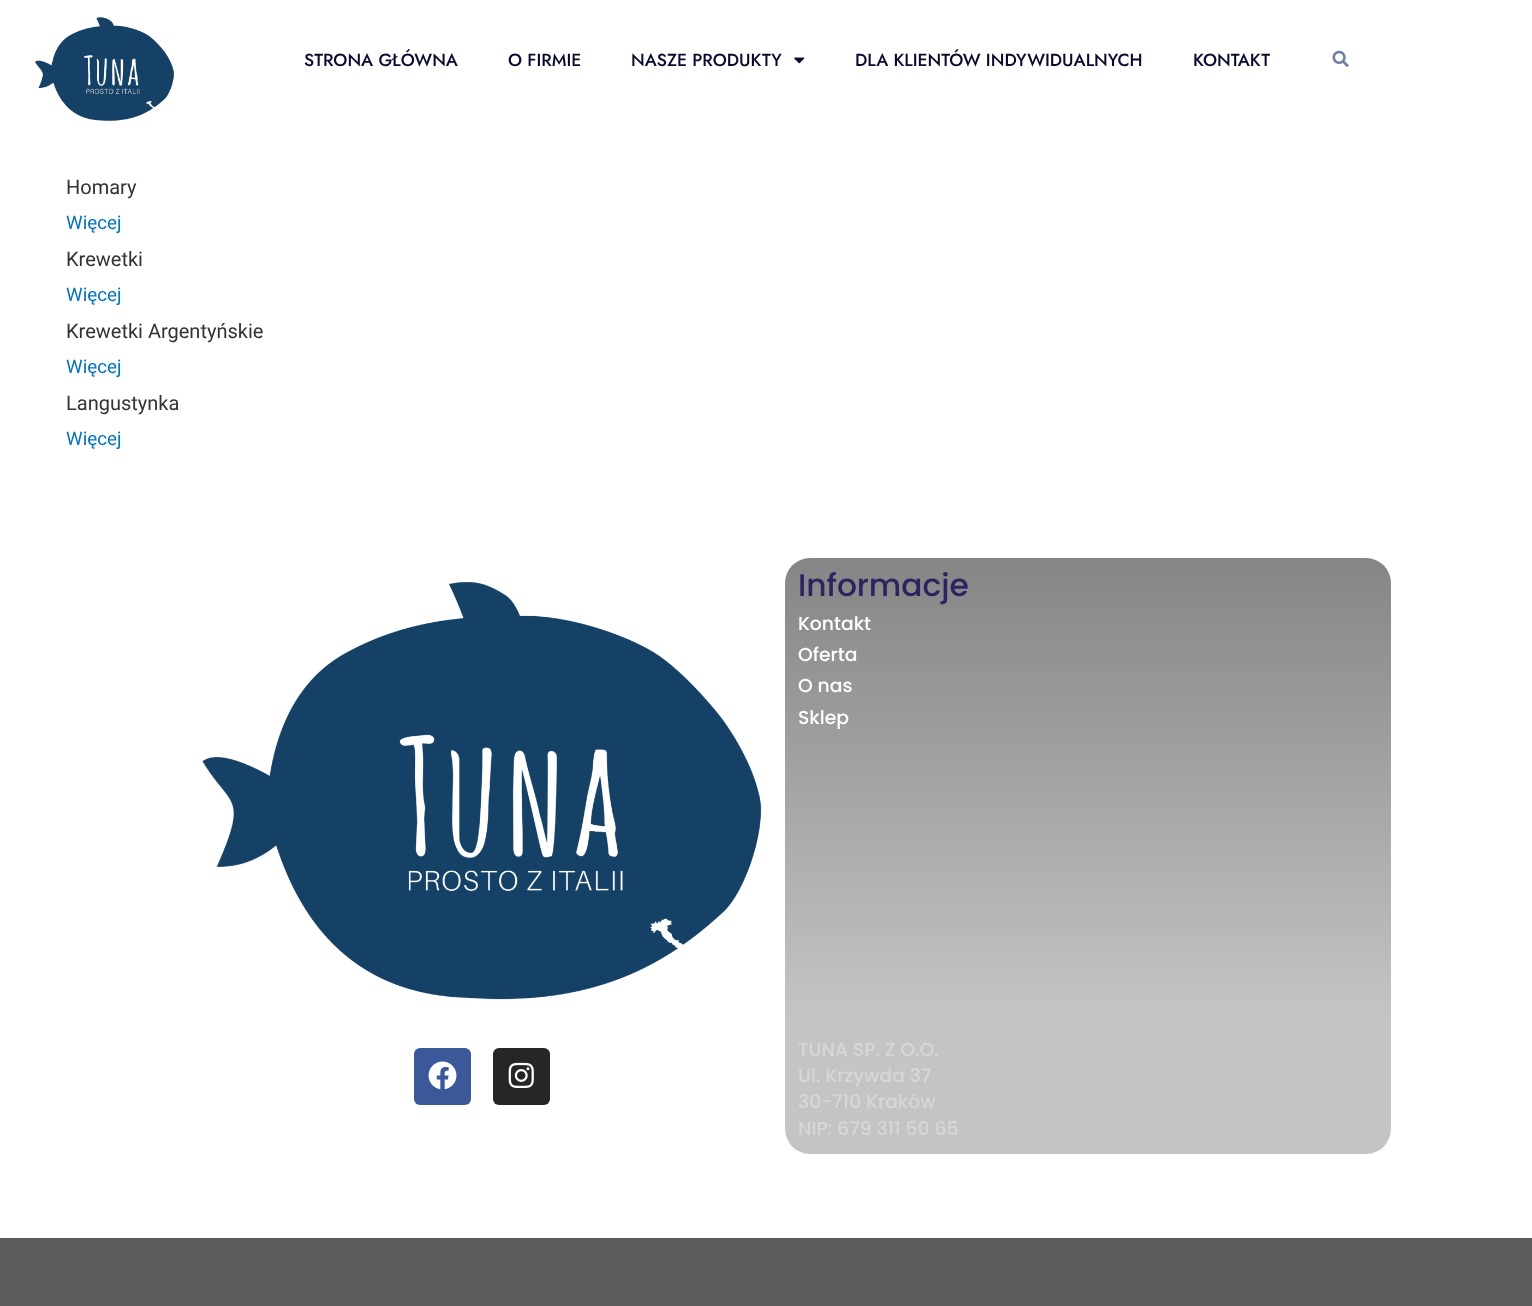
<!DOCTYPE html>
<meta charset="utf-8">
<style>body { margin: 0 } canvas { display: block }</style>
<canvas id="canvas" width="1532" height="1306"></canvas>
<script type="module">
  const canvas = document.getElementById("canvas");
  const g = canvas.getContext("2d");
  g.miterLimit = 4;
  g.fontKerning = "normal";
  function drawText(s, x, y, [font, color]) {
    g.font = font;
    g.fillStyle = color;
    g.fillText(s, x, y);
  }
  function fillBox(x, y, w, h, color) {
    g.fillStyle = color;
    g.fillRect(x, y, w, h);
  }
  function fillRounded(x, y, w, h, r, color) {
    g.fillStyle = color;
    g.beginPath();
    g.roundRect(x, y, w, h, r);
    g.fill();
  }
  async function drawPicture(src, x, y, w, h) {
    const img = new Image();
    img.src = src;
    await img.decode();
    g.drawImage(img, x, y, w, h);
  }
  let gradient;

  const s1 = ["500 17.5px Jost", "#090A2E"];
  const s2 = ["20px Roboto", "#333333"];
  const s3 = ["18.75px Roboto", "#0274BE"];
  const s4 = ["500 31.25px Poppins", "#2B2460"];
  const s5 = ["500 18.75px Poppins", "#FFFFFF"];
  const s6 = ["500 18.75px Poppins", "#D7D7D7"];

  fillBox(0, 0, 1532, 1306, "#FFFFFF");
  await drawPicture("pic1.png", 34, 17, 140, 104);
  drawText("STRONA GŁÓWNA", 304, 66, s1);
  drawText("O FIRMIE", 508, 66, s1);
  drawText("NASZE PRODUKTY", 631, 66, s1);
  await drawPicture("pic2.png", 794, 57, 11, 7);
  drawText("DLA KLIENTÓW INDYWIDUALNYCH", 855, 66, s1);
  drawText("KONTAKT", 1193, 66, s1);
  await drawPicture("pic3.png", 1332, 50, 17, 17);
  drawText("Homary", 66, 194, s2);
  drawText("Więcej", 66, 229, s3);
  drawText("Krewetki", 66, 266, s2);
  drawText("Więcej", 66, 301, s3);
  drawText("Krewetki Argentyńskie", 66, 338, s2);
  drawText("Więcej", 66, 373, s3);
  drawText("Langustynka", 66, 410, s2);
  drawText("Więcej", 66, 445, s3);
  await drawPicture("pic4.png", 202, 582, 560, 418);
  gradient = g.createLinearGradient(1088, 558, 1088, 1024);
  gradient.addColorStop(0, "#858585");
  gradient.addColorStop(1, "#C5C5C5");
  g.fillStyle = gradient;
  g.beginPath();
  g.roundRect(785, 558, 606, 466, [25, 25, 0, 0]);
  g.fill();
  drawText("Informacje", 798, 596, s4);
  drawText("Kontakt", 798, 630, s5);
  drawText("Oferta", 798, 661, s5);
  drawText("O nas", 798, 692, s5);
  drawText("Sklep", 798, 724, s5);
  fillRounded(414, 1048, 57, 57, 6, "#3B5998");
  await drawPicture("pic5.png", 428, 1061, 29, 29);
  fillRounded(493, 1048, 57, 57, 6, "#262626");
  await drawPicture("pic6.png", 508, 1062, 26, 27);
  g.fillStyle = "#C4C4C4";
  g.beginPath();
  g.roundRect(785, 1024, 606, 130, [0, 0, 25, 25]);
  g.fill();
  drawText("TUNA SP. Z O.O.", 798, 1056, s6);
  drawText("Ul. Krzywda 37", 798, 1082, s6);
  drawText("30-710 Kraków", 798, 1108, s6);
  drawText("NIP: 679 311 50 65", 798, 1135, s6);
  fillBox(0, 1238, 1532, 68, "#5B5B5D");
</script>
